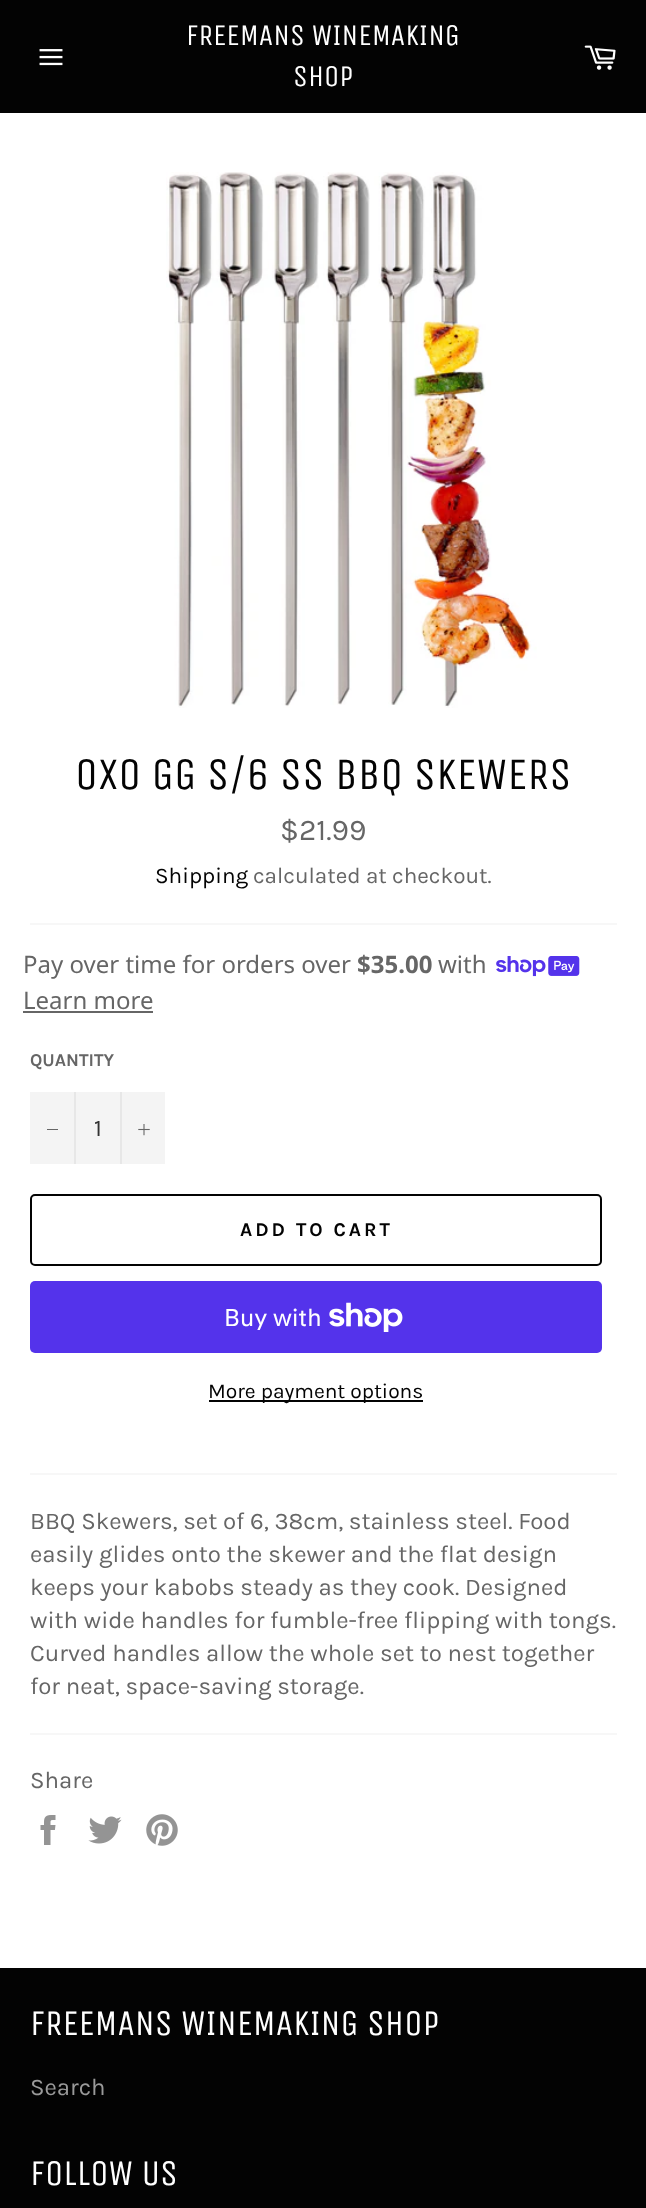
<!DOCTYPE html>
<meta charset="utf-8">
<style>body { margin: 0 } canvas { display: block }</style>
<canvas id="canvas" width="646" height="2208"></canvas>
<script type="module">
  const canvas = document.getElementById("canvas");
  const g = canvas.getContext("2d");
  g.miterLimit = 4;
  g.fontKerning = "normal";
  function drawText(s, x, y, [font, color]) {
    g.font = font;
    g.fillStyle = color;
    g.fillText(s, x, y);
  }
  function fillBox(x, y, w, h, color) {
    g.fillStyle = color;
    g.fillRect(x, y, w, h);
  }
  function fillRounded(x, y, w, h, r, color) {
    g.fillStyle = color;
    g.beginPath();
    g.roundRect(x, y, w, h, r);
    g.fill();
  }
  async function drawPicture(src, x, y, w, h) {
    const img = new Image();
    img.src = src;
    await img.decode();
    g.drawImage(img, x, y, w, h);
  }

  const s1 = ["30px Unica One", "#FFFFFF"];
  const s2 = ["45px Unica One", "#030303"];
  const s3 = ["30px Karla", "#666666"];
  const s4 = ["22.5px Karla", "#030303"];
  const s5 = ["22.5px Karla", "#666666"];
  const s6 = ["24px Noto Sans", "#666666"];
  const s7 = ["bold 24px Noto Sans", "#666666"];
  const s8 = ["bold 18px Karla", "#666666"];
  const s9 = ["24px Karla", "#333333"];
  const s10 = ["bold 19.5px Karla", "#030303"];
  const s11 = ["24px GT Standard", "#FFFFFF"];
  const s12 = ["21px Karla", "#030303"];
  const s13 = ["24px Karla", "#666666"];
  const s14 = ["36px Unica One", "#FFFFFF"];
  const s15 = ["24px Karla", "#9A9A9A"];

  fillBox(0, 0, 646, 2208, "#030303");
  await drawPicture("pic1.png", 39, 49, 24, 17);
  drawText("FREEMANS WINEMAKING", 186, 45, s1);
  drawText("SHOP", 293, 86, s1);
  await drawPicture("pic2.png", 584, 45, 32, 25);
  fillBox(0, 113, 646, 1855, "#FFFFFF");
  await drawPicture("pic3.png", 166, 172, 371, 536);
  drawText("OXO GG S/6 SS BBQ SKEWERS", 75, 789, s2);
  drawText("$21.99", 280, 840, s3);
  drawText("Shipping", 155, 883, s4);
  drawText("calculated at checkout.", 253, 883, s5);
  fillBox(30, 923, 587, 2, "#F7F7F7");
  drawText("Pay over time for orders over", 23, 973, s6);
  drawText("$35.00", 357, 973, s7);
  drawText("with", 438, 973, s6);
  await drawPicture("pic4.png", 496, 956, 84, 21);
  drawText("Learn more", 23, 1009, s6);
  fillBox(23, 1011, 130, 2, "#666666");
  drawText("QUANTITY", 30, 1066, s8);
  fillBox(30, 1092, 135, 72, "#F4F4F4");
  fillBox(74, 1092, 2, 72, "#E7E7E7");
  fillBox(47, 1129, 11, 1, "#666666");
  drawText("1", 94, 1136, s9);
  fillBox(120, 1092, 2, 72, "#E7E7E7");
  await drawPicture("pic5.png", 138, 1124, 12, 12);
  g.beginPath();
  g.roundRect(31, 1195, 570, 70, 4);
  g.strokeStyle = "#030303";
  g.lineWidth = 2;
  g.stroke();
  g.letterSpacing = "3px";
  drawText("ADD TO CART", 240, 1236, s10);
  fillRounded(30, 1281, 572, 72, 5, "#5433EB");
  g.letterSpacing = "0px";
  drawText("Buy with", 224, 1326, s11);
  await drawPicture("pic6.png", 329, 1302, 74, 30);
  fillBox(209, 1400, 214, 2, "#030303");
  drawText("More payment options", 208, 1398, s12);
  fillBox(30, 1473, 587, 2, "#F7F7F7");
  drawText("BBQ Skewers, set of 6, 38cm, stainless steel. Food", 30, 1529, s13);
  drawText("easily glides onto the skewer and the flat design", 30, 1562, s13);
  drawText("keeps your kabobs steady as they cook. Designed", 30, 1595, s13);
  drawText("with wide handles for fumble-free flipping with tongs.", 30, 1628, s13);
  drawText("Curved handles allow the whole set to nest together", 30, 1661, s13);
  drawText("for neat, space-saving storage.", 30, 1694, s13);
  fillBox(30, 1733, 587, 2, "#F7F7F7");
  drawText("Share", 30, 1788, s13);
  await drawPicture("pic7.png", 40, 1815, 16, 30);
  await drawPicture("pic8.png", 88, 1816, 34, 28);
  await drawPicture("pic9.png", 146, 1814, 32, 32);
  drawText("FREEMANS WINEMAKING SHOP", 30, 2035, s14);
  drawText("Search", 30, 2095, s15);
  drawText("FOLLOW US", 30, 2185, s14);
</script>
